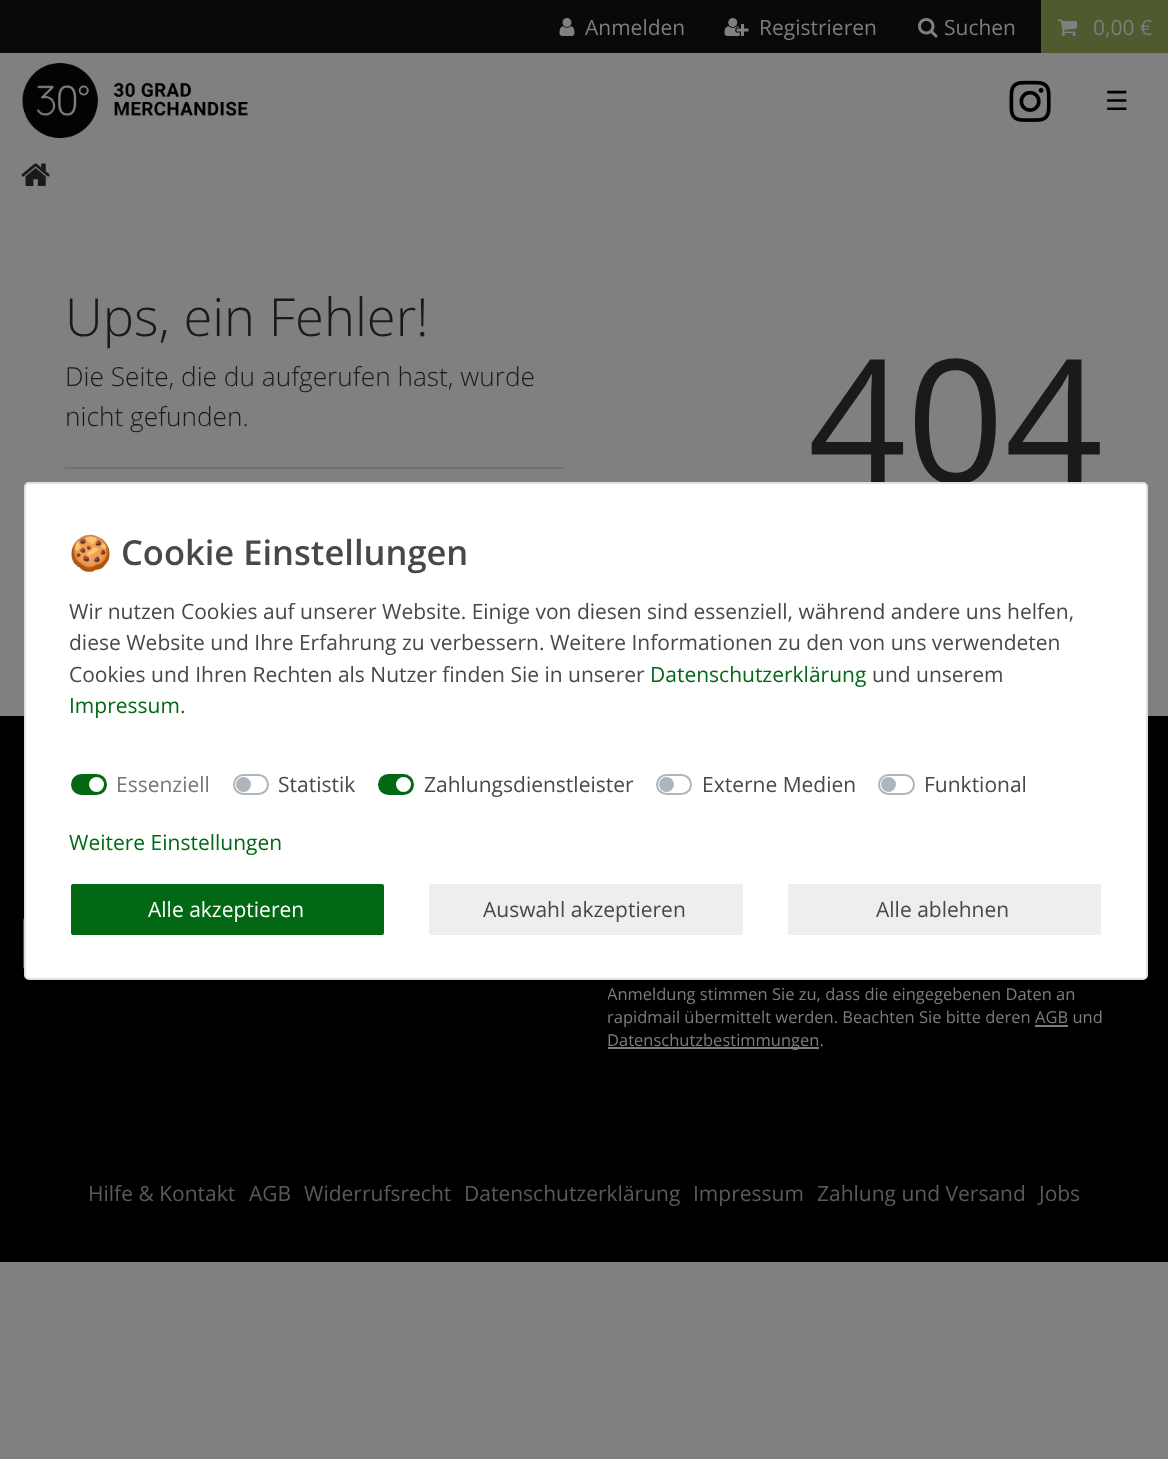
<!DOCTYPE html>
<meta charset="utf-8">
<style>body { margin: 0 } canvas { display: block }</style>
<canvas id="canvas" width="1168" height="1459"></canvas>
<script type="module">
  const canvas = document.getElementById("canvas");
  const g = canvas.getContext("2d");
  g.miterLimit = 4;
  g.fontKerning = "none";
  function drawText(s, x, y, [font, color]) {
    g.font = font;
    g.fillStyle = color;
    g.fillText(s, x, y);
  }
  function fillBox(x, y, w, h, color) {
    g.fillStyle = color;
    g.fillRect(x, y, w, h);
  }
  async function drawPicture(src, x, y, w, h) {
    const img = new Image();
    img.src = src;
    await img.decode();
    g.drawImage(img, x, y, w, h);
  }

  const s1 = ["21px Open Sans", "#7C7D7D"];
  const s2 = ["26.25px DejaVu Sans", "#000000"];
  const s3 = ["300 52.5px Open Sans", "#1A1A1A"];
  const s4 = ["300 26.25px Open Sans", "#1A1A1A"];
  const s5 = ["172px Open Sans", "#1A1A1A"];
  const s6 = ["bold 34.5px Noto Color Emoji", "#484848"];
  const s7 = ["600 34.5px Open Sans", "#484848"];
  const s8 = ["21px Open Sans", "#484848"];
  const s9 = ["21px Open Sans", "#026814"];
  const s10 = ["21px Open Sans", "#767676"];
  const s11 = ["21px Open Sans", "#FFFFFF"];
  const s12 = ["16.5px Open Sans", "#7C7D7D"];
  const s13 = ["21px Open Sans", "#5A5A5A"];

  fillBox(0, 0, 1168, 1459, "#808080");
  fillBox(0, 0, 1041, 53, "#090909");
  await drawPicture("pic1.png", 559, 18, 16, 18);
  drawText("Anmelden", 585, 35, s1);
  await drawPicture("pic2.png", 724, 18, 25, 18);
  drawText("Registrieren", 759, 35, s1);
  await drawPicture("pic3.png", 918, 18, 20, 20);
  drawText("Suchen", 944, 35, s1);
  fillBox(1041, 0, 127, 53, "#4F5A2E");
  await drawPicture("pic4.png", 1057, 19, 20, 17);
  drawText("0,00 €", 1093, 35, s1);
  await drawPicture("pic5.png", 22, 63, 226, 75);
  await drawPicture("pic6.png", 1009, 80, 42, 42);
  drawText("☰", 1105, 110, s2);
  await drawPicture("pic7.png", 21, 163, 29, 23);
  drawText("Ups, ein Fehler!", 65, 336, s3);
  drawText("Die Seite, die du aufgerufen hast, wurde", 65, 386, s4);
  drawText("nicht gefunden.", 65, 426, s4);
  fillBox(65, 467, 498, 2, "#6F7173");
  drawText("404", 808, 483, s5);
  fillBox(0, 716, 1168, 546, "#000000");
  g.beginPath();
  g.roundRect(24, 919, 305, 49, 1);
  g.strokeStyle = "#4F5A2E";
  g.lineWidth = 2;
  g.stroke();
  g.fillStyle = "#FFFFFF";
  g.beginPath();
  g.roundRect(25, 483, 1122, 496, 4);
  g.fill();
  g.strokeStyle = "#DEE2E6";
  g.stroke();
  drawText("🍪", 69, 565, s6);
  drawText("Cookie Einstellungen", 121, 565, s7);
  drawText("Wir nutzen Cookies auf unserer Website. Einige von diesen sind essenziell, während andere uns helfen,", 69, 619, s8);
  drawText("diese Website und Ihre Erfahrung zu verbessern. Weitere Informationen zu den von uns verwendeten", 69, 650, s8);
  drawText("Cookies und Ihren Rechten als Nutzer finden Sie in unserer", 69, 682, s8);
  drawText("Datenschutzerklärung", 650, 682, s9);
  drawText("und unserem", 872, 682, s8);
  drawText("Impressum", 69, 713, s9);
  drawText(".", 180, 713, s8);
  g.fillStyle = "#026814";
  g.beginPath();
  g.roundRect(72, 775, 34, 19, 9.5);
  g.fill();
  g.strokeStyle = "#026814";
  g.stroke();
  drawText("Essenziell", 116, 792, s10);
  g.fillStyle = "#FFFFFF";
  g.beginPath();
  g.arc(96.5, 784.5, 7.5, 0, Math.PI * 2);
  g.fill();
  g.beginPath();
  g.roundRect(234, 775, 34, 19, 9.5);
  g.strokeStyle = "#ADB5BD";
  g.stroke();
  drawText("Statistik", 278, 792, s8);
  g.fillStyle = "#ADB5BD";
  g.beginPath();
  g.arc(243.5, 784.5, 7.5, 0, Math.PI * 2);
  g.fill();
  g.fillStyle = "#026814";
  g.beginPath();
  g.roundRect(379, 775, 34, 19, 9.5);
  g.fill();
  g.strokeStyle = "#026814";
  g.stroke();
  drawText("Zahlungsdienstleister", 424, 792, s8);
  g.fillStyle = "#FFFFFF";
  g.beginPath();
  g.arc(403.5, 784.5, 7.5, 0, Math.PI * 2);
  g.fill();
  g.beginPath();
  g.roundRect(657, 775, 34, 19, 9.5);
  g.strokeStyle = "#ADB5BD";
  g.stroke();
  drawText("Externe Medien", 702, 792, s8);
  g.fillStyle = "#ADB5BD";
  g.beginPath();
  g.arc(666.5, 784.5, 7.5, 0, Math.PI * 2);
  g.fill();
  g.beginPath();
  g.roundRect(879, 775, 35, 19, 9.5);
  g.stroke();
  drawText("Funktional", 924, 792, s8);
  g.fillStyle = "#ADB5BD";
  g.beginPath();
  g.arc(888.5, 784.5, 7.5, 0, Math.PI * 2);
  g.fill();
  drawText("Weitere Einstellungen", 69, 850, s9);
  g.beginPath();
  g.roundRect(72, 885, 311, 49, 1);
  g.fill();
  g.strokeStyle = "#026814";
  g.stroke();
  drawText("Alle akzeptieren", 148, 917, s11);
  g.fillStyle = "#EEEEEE";
  g.beginPath();
  g.roundRect(430, 885, 312, 49, 1);
  g.fill();
  g.strokeStyle = "#EEEEEE";
  g.stroke();
  drawText("Auswahl akzeptieren", 483, 917, s8);
  g.fillStyle = "#EEEEEE";
  g.beginPath();
  g.roundRect(789, 885, 311, 49, 1);
  g.fill();
  g.stroke();
  drawText("Alle ablehnen", 876, 917, s8);
  g.save();
  g.beginPath();
  g.rect(608, 803, 538, 270);
  g.clip();
  drawText("Anmeldung stimmen", 607, 1000, s12);
  g.restore();
  drawText("Sie zu, dass die eingegebenen Daten an", 772, 1000, s12);
  drawText("rapidmail übermittelt werden. Beachten Sie bitte deren AGB und", 607, 1023, s12);
  fillBox(1035, 1025, 33, 2, "#7C7D7D");
  fillBox(608, 1047, 211, 2, "#7C7D7D");
  drawText("Datenschutzbestimmungen.", 607, 1046, s12);
  drawText("Hilfe & Kontakt", 88, 1201, s13);
  drawText("AGB", 249, 1201, s13);
  drawText("Widerrufsrecht", 304, 1201, s13);
  drawText("Datenschutzerklärung", 464, 1201, s13);
  drawText("Impressum", 693, 1201, s13);
  drawText("Zahlung und Versand", 817, 1201, s13);
  drawText("Jobs", 1039, 1201, s13);
</script>
